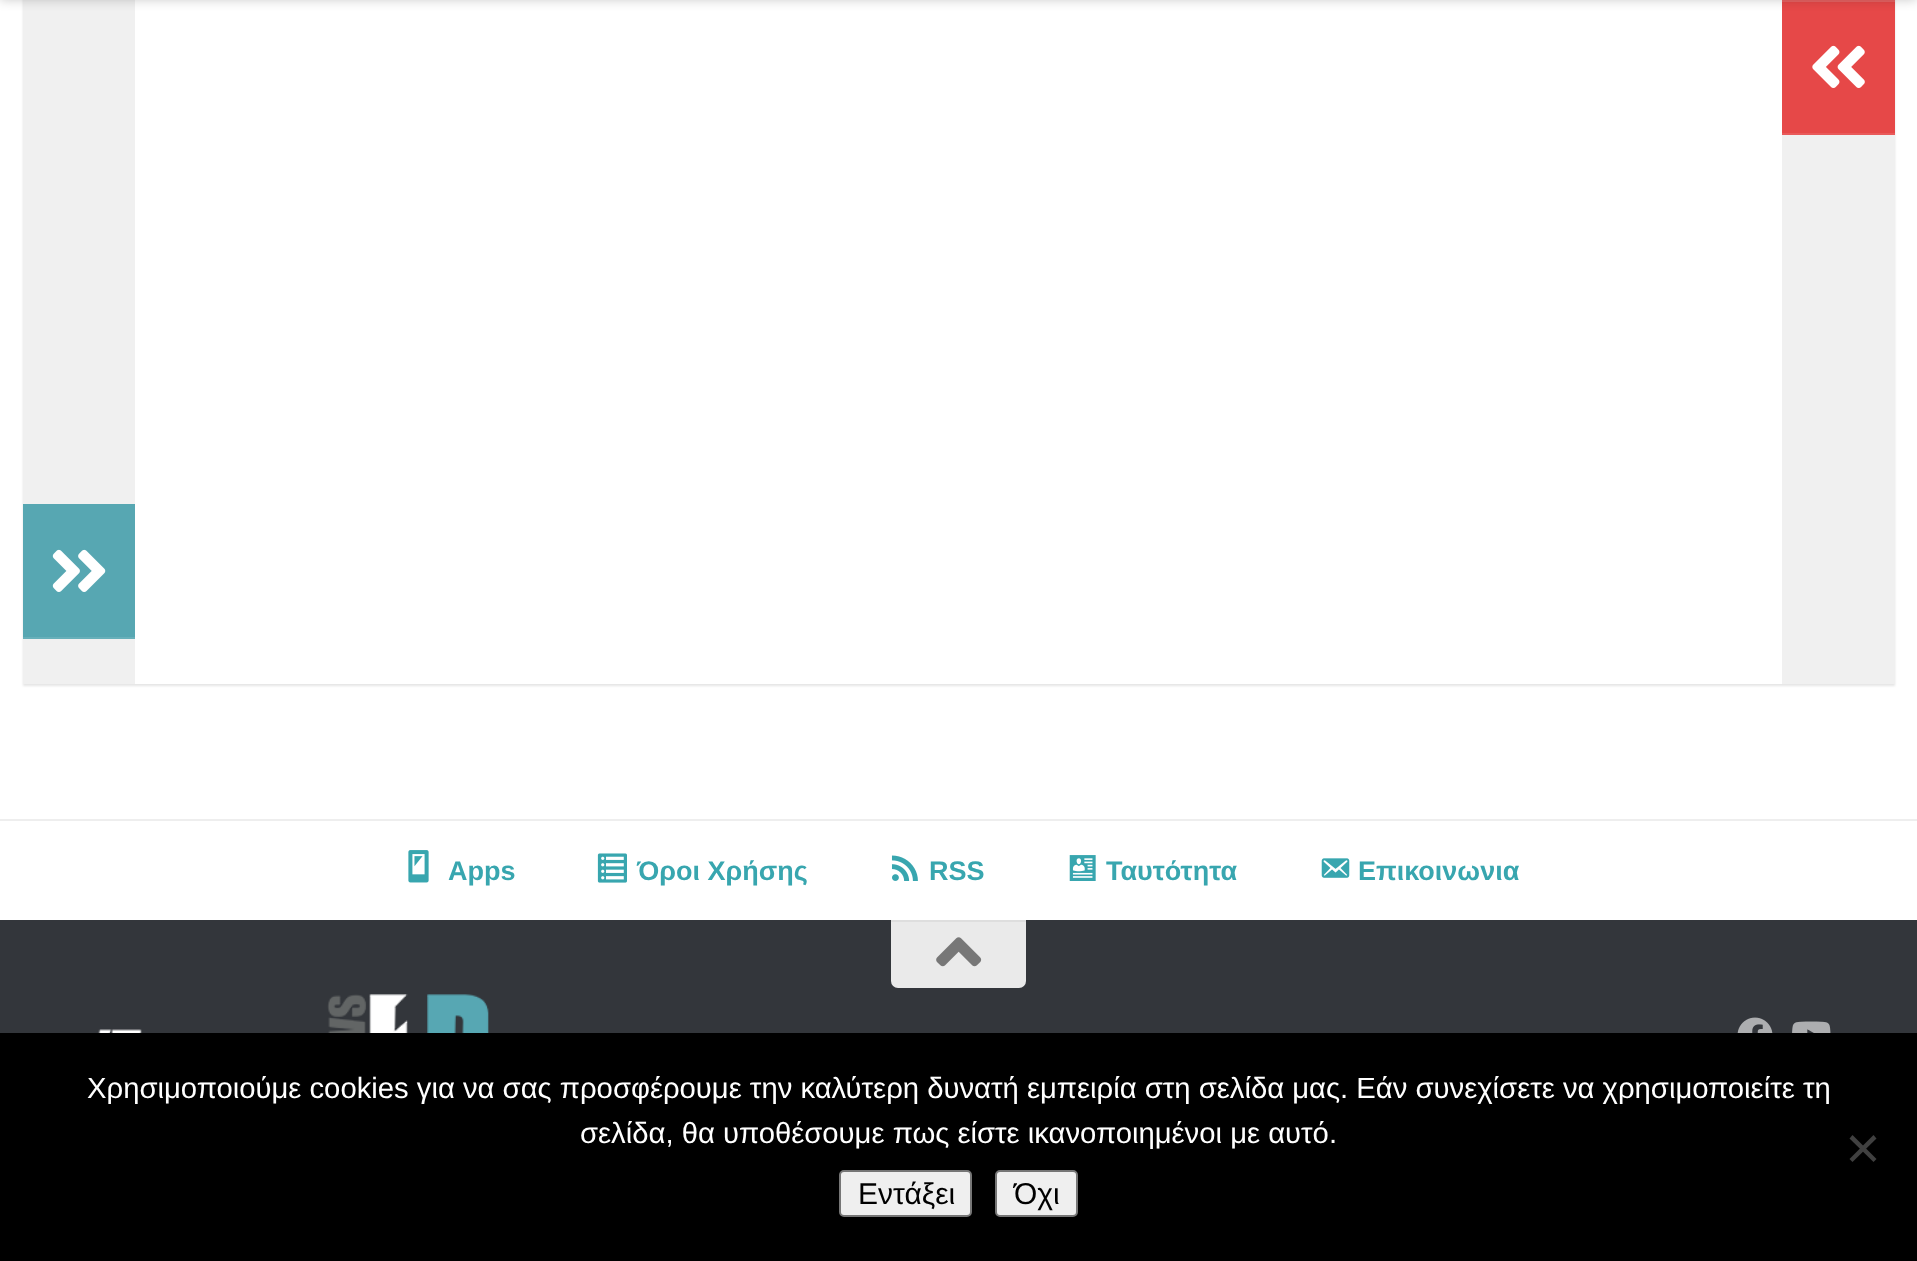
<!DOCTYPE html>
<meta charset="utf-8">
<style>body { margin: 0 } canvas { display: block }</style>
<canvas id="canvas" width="1917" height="1261"></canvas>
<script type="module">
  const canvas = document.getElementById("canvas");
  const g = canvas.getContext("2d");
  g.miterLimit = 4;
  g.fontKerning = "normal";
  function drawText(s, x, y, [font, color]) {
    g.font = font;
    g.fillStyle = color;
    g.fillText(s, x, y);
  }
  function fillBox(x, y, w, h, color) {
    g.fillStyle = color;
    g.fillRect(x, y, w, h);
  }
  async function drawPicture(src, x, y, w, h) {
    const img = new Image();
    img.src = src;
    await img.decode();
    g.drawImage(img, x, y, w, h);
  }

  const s1 = ["bold 27px Liberation Sans", "#38A6AF"];
  const s2 = ["29.25px Liberation Sans", "#FFFFFF"];
  const s3 = ["30px Liberation Sans", "#000000"];

  fillBox(0, 0, 1917, 1261, "#FFFFFF");
  g.fillStyle = "rgba(0, 0, 0, 0.1)";
  g.filter = "blur(1px)";
  g.beginPath();
  g.rect(23, -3, 1872, 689);
  g.fill();
  g.filter = "none";
  fillBox(1782, 0, 113, 133, "#E64848");
  fillBox(1782, 0, 113, 2, "rgba(255, 255, 255, 0.15)");
  fillBox(135, 0, 1647, 684, "#FFFFFF");
  fillBox(23, 0, 112, 684, "#F0F0F0");
  g.fillStyle = "rgba(0, 0, 0, 0.2)";
  g.filter = "blur(5.5px)";
  g.beginPath();
  g.rect(0, -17, 1917, 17);
  g.fill();
  g.filter = "none";
  fillBox(1782, 133, 113, 2, "#E95A5A");
  await drawPicture("pic1.png", 1812, 45, 53, 43);
  fillBox(23, 504, 112, 133, "#57A7B2");
  fillBox(23, 637, 112, 2, "#68B0BA");
  await drawPicture("pic2.png", 52, 549, 54, 43);
  fillBox(1782, 135, 113, 549, "#F0F0F0");
  fillBox(0, 819, 1917, 2, "#EEEEEE");
  await drawPicture("pic3.png", 408, 850, 21, 33);
  drawText("Apps", 448, 880, s1);
  await drawPicture("pic4.png", 597, 853, 30, 30);
  drawText("Όροι Χρήσης", 637, 880, s1);
  await drawPicture("pic5.png", 891, 855, 27, 26);
  drawText("RSS", 929, 880, s1);
  await drawPicture("pic6.png", 1069, 855, 27, 26);
  drawText("Ταυτότητα", 1106, 880, s1);
  await drawPicture("pic7.png", 1321, 858, 29, 20);
  drawText("Επικοινωνια", 1358, 880, s1);
  fillBox(0, 920, 1917, 113, "#33363B");
  g.fillStyle = "#EAEAEA";
  g.beginPath();
  g.roundRect(891, 920, 135, 68, [0, 0, 7, 7]);
  g.fill();
  fillBox(891, 920, 135, 2, "#DEDEDE");
  await drawPicture("pic8.png", 936, 937, 46, 30);
  await drawPicture("pic9.png", 97, 994, 392, 39);
  await drawPicture("pic10.png", 1737, 1017, 36, 16);
  await drawPicture("pic11.png", 1792, 1021, 39, 12);
  fillBox(0, 1033, 1917, 228, "#000000");
  drawText("Χρησιμοποιούμε cookies για να σας προσφέρουμε την καλύτερη δυνατή εμπειρία στη σελίδα μας. Εάν συνεχίσετε να χρησιμοποιείτε τη", 87, 1098, s2);
  drawText("σελίδα, θα υποθέσουμε πως είστε ικανοποιημένοι με αυτό.", 580, 1143, s2);
  g.fillStyle = "#404040";
  g.beginPath();
  g.moveTo(1873.5, 1135);
  g.lineTo(1876.5, 1138.5);
  g.lineTo(1852.5, 1162);
  g.lineTo(1849.5, 1159);
  g.closePath();
  g.fill();
  g.beginPath();
  g.moveTo(1849.5, 1138.5);
  g.lineTo(1852.5, 1135);
  g.lineTo(1876.5, 1159);
  g.lineTo(1873.5, 1162);
  g.closePath();
  g.fill();
  g.fillStyle = "#EFEFEF";
  g.beginPath();
  g.roundRect(840, 1171, 131, 45, 4);
  g.fill();
  g.strokeStyle = "#767676";
  g.lineWidth = 2;
  g.stroke();
  drawText("Εντάξει", 858, 1204, s3);
  g.fillStyle = "#EFEFEF";
  g.beginPath();
  g.roundRect(996, 1171, 81, 45, 4);
  g.fill();
  g.stroke();
  drawText("Όχι", 1014, 1204, s3);
</script>
